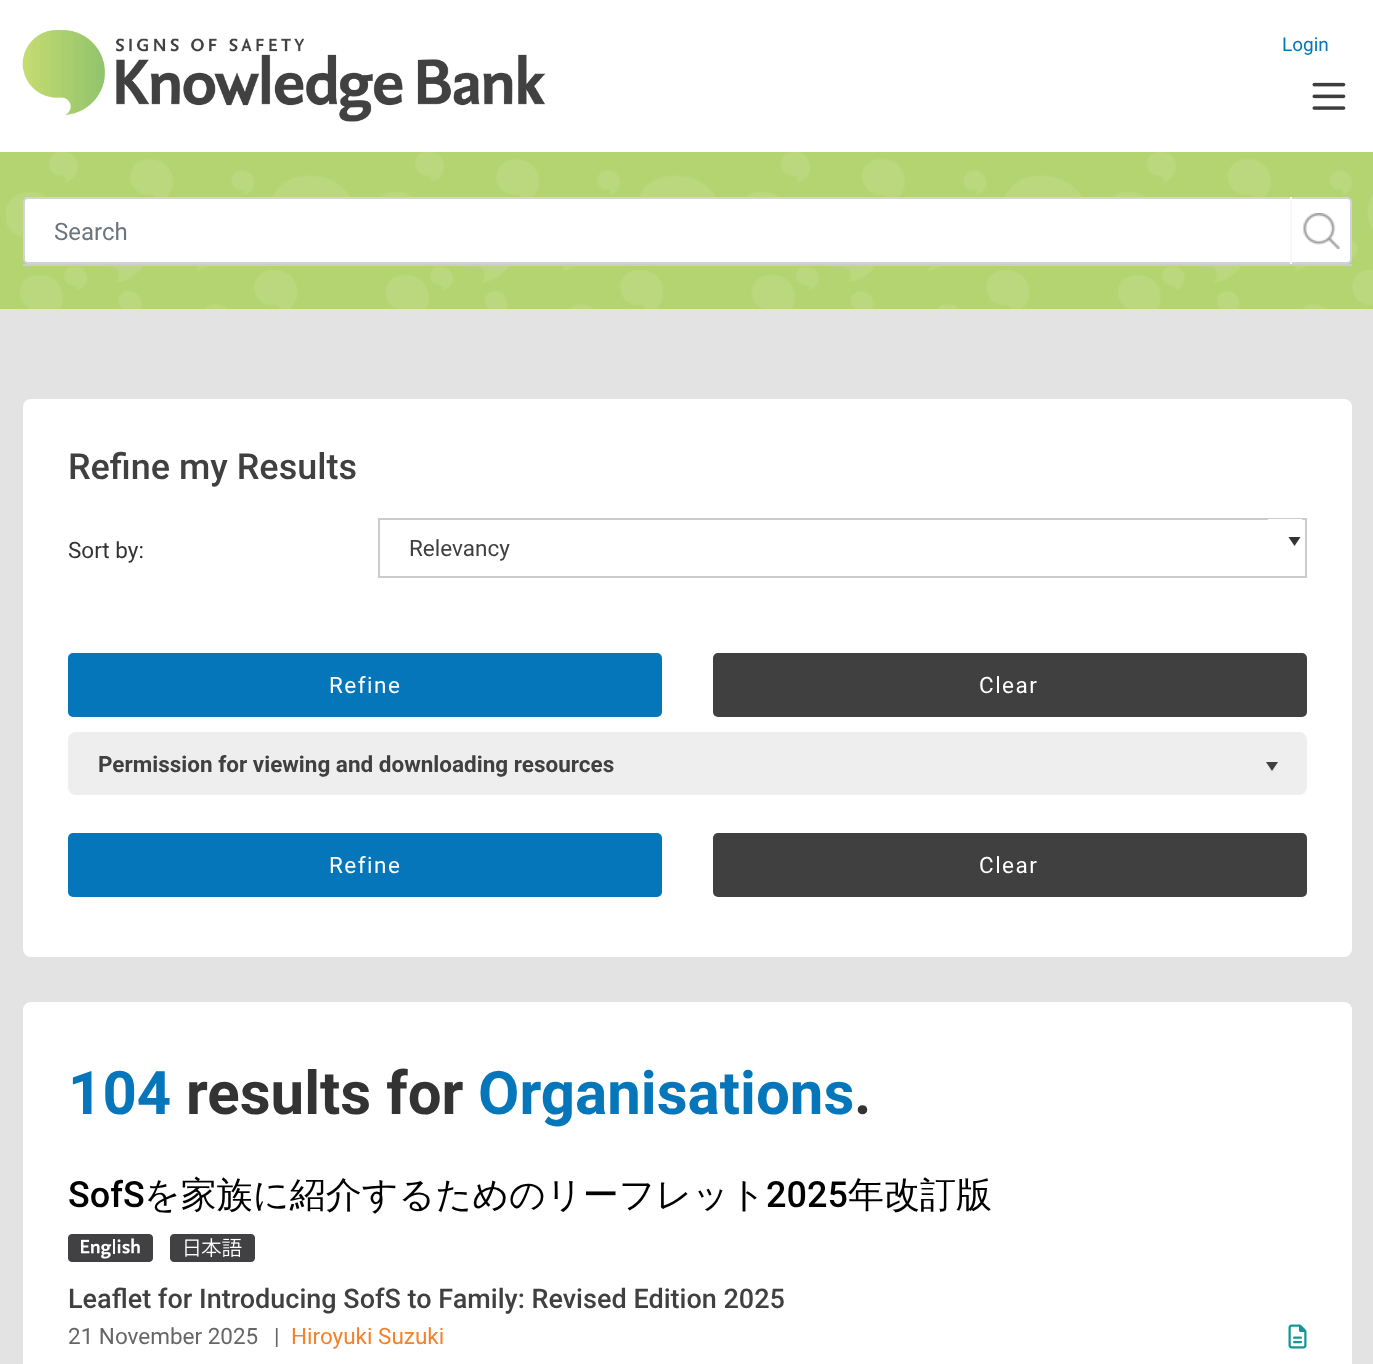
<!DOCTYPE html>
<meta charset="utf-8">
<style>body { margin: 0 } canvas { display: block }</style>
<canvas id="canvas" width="1373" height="1364"></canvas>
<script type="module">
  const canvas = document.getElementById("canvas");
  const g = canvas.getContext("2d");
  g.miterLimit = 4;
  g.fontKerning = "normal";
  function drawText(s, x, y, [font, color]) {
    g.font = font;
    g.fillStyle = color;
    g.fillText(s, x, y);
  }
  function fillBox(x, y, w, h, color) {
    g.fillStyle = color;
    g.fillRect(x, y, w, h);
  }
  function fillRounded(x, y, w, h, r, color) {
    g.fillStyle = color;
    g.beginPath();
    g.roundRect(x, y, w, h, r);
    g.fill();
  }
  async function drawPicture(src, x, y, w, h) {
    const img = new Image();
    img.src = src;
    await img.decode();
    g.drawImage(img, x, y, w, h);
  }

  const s1 = ["19px Roboto", "#0676BB"];
  const s2 = ["24px Roboto", "#6C757D"];
  const s3 = ["500 36px Roboto", "#404041"];
  const s4 = ["22.5px Roboto", "#333333"];
  const s5 = ["22.5px Roboto", "#404041"];
  const s6 = ["22.5px Roboto", "#FFFFFF"];
  const s7 = ["bold 22.5px Roboto", "#404041"];
  const s8 = ["bold 60px Roboto", "#0676BB"];
  const s9 = ["bold 60px Roboto", "#333333"];
  const s10 = ["500 36px Roboto", "#000000"];
  const s11 = ["500 36px WenQuanYi Zen Hei", "#000000"];
  const s12 = ["500 27px Roboto", "#404041"];
  const s13 = ["22.5px Roboto", "#666666"];
  const s14 = ["22.5px Roboto", "#F5822A"];

  fillBox(0, 0, 1373, 1364, "#E3E3E3");
  fillBox(0, 0, 1373, 152, "#FFFFFF");
  await drawPicture("pic1.png", 22, 30, 524, 92);
  drawText("Login", 1282, 51, s1);
  await drawPicture("pic2.png", 1312, 82, 34, 28);
  await drawPicture("pic3.png", 0, 152, 1373, 157);
  g.fillStyle = "#FFFFFF";
  g.beginPath();
  g.roundRect(24, 198, 1327, 65, 4);
  g.fill();
  g.strokeStyle = "#CED4DA";
  g.lineWidth = 2;
  g.stroke();
  drawText("Search", 54, 240, s2);
  await drawPicture("pic4.png", 1303, 213, 37, 36);
  fillBox(1290, 197, 2, 67, "#F8F8F8");
  fillBox(23, 264, 1329, 2, "#CCCCCC");
  fillRounded(23, 399, 1329, 558, 8, "#FFFFFF");
  drawText("Refine my Results", 68, 479, s3);
  drawText("Sort by:", 68, 558, s4);
  g.strokeStyle = "#CCCCCC";
  g.strokeRect(379, 519, 927, 58);
  drawText("Relevancy", 409, 556, s5);
  g.fillStyle = "#FFFFFF";
  g.beginPath();
  g.roundRect(1268, 519, 37, 32, [0, 5, 5, 0]);
  g.fill();
  g.fillStyle = "#333333";
  g.beginPath();
  g.moveTo(1294.5, 546);
  g.lineTo(1288.5, 537);
  g.lineTo(1300.5, 537);
  g.closePath();
  g.fill();
  fillRounded(68, 653, 594, 64, 5, "#0676BB");
  g.letterSpacing = "1.5px";
  drawText("Refine", 329, 693, s6);
  fillRounded(713, 653, 594, 64, 5, "#404041");
  drawText("Clear", 979, 693, s6);
  fillRounded(68, 732, 1239, 63, 8, "#EEEEEE");
  g.letterSpacing = "0px";
  drawText("Permission for viewing and downloading resources", 98, 772, s7);
  g.beginPath();
  g.moveTo(1272, 771);
  g.lineTo(1266, 762);
  g.lineTo(1278, 762);
  g.closePath();
  g.fill();
  fillRounded(68, 833, 594, 64, 5, "#0676BB");
  g.letterSpacing = "1.5px";
  drawText("Refine", 329, 873, s6);
  fillRounded(713, 833, 594, 64, 5, "#404041");
  drawText("Clear", 979, 873, s6);
  fillRounded(23, 1002, 1329, 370, 8, "#FFFFFF");
  g.letterSpacing = "0px";
  drawText("104", 68, 1114, s8);
  drawText("results for", 186, 1114, s9);
  drawText("Organisations", 478, 1114, s8);
  drawText(".", 854, 1114, s9);
  drawText("SofS", 68, 1207, s10);
  drawText("を家族に紹介するためのリーフレット", 144, 1207, s11);
  drawText("2025", 766, 1207, s10);
  drawText("年改訂版", 848, 1207, s11);
  await drawPicture("pic5.png", 68, 1234, 85, 28);
  await drawPicture("pic6.png", 170, 1234, 85, 28);
  drawText("Leaflet for Introducing SofS to Family: Revised Edition 2025", 68, 1308, s12);
  drawText("21 November 2025", 68, 1344, s13);
  drawText("|", 274, 1344, s13);
  drawText("Hiroyuki Suzuki", 291, 1344, s14);
  await drawPicture("pic7.png", 1288, 1324, 19, 25);
</script>
